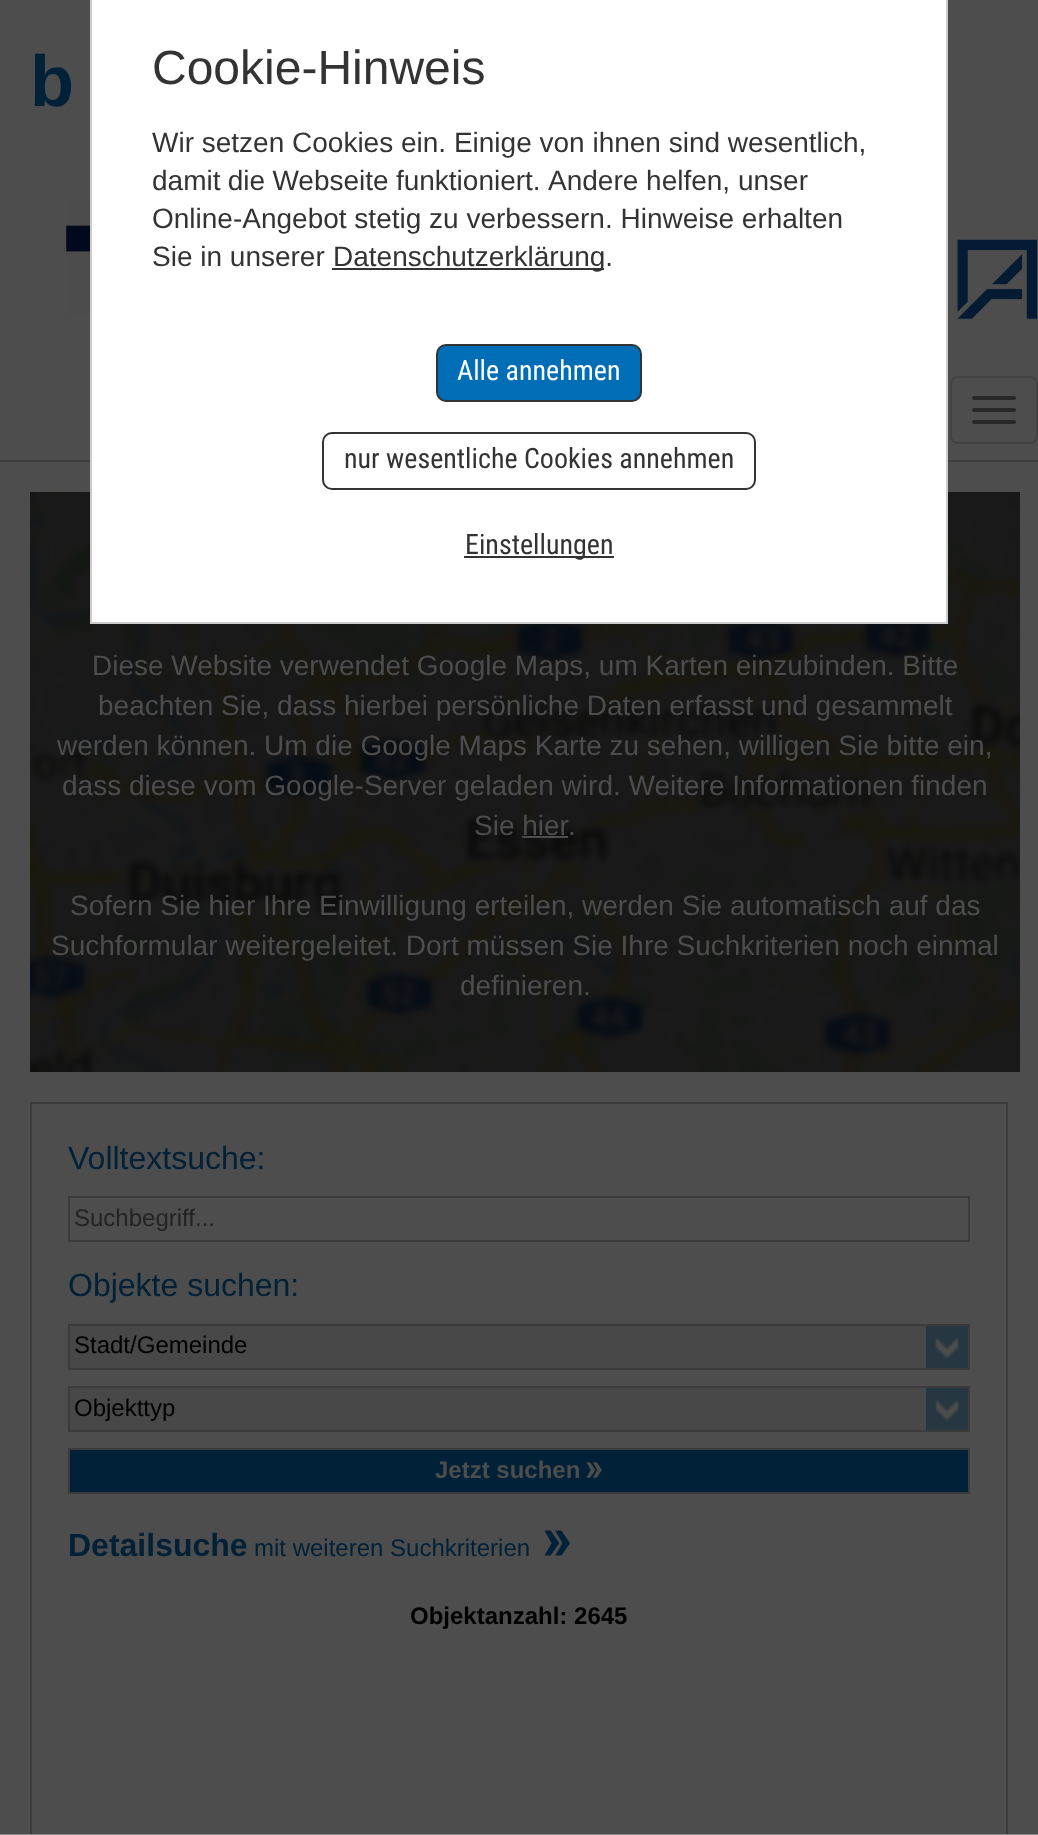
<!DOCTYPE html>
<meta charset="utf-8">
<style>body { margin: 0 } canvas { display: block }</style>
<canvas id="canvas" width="1038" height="1835"></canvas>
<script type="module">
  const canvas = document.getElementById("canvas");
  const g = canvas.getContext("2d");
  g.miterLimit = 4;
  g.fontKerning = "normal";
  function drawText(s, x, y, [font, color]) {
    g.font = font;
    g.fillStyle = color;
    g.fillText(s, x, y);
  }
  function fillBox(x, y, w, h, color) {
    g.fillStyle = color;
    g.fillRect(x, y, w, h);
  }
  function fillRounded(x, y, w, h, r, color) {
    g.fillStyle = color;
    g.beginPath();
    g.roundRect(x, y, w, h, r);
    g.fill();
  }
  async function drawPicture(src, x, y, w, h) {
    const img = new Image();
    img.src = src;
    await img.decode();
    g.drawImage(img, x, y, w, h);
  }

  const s1 = ["bold 72px Liberation Sans", "#002137"];
  const s2 = ["48px Liberation Sans", "#333333"];
  const s3 = ["28px Liberation Sans", "#333333"];
  const s4 = ["28px Roboto Condensed", "#FFFFFF"];
  const s5 = ["28px Roboto Condensed", "#333333"];
  const s6 = ["28px Liberation Sans", "#4D4D4D"];
  const s7 = ["32px Liberation Sans", "#002137"];
  const s8 = ["24px Liberation Sans", "#232323"];
  const s9 = ["24px Liberation Sans", "#000000"];
  const s10 = ["bold 24px Liberation Sans", "#4D4D4D"];
  const s11 = ["bold 32px Liberation Sans", "#002137"];
  const s12 = ["24px Liberation Sans", "#002137"];
  const s13 = ["bold 24px Liberation Sans", "#000000"];

  fillBox(0, 0, 1038, 1835, "#4D4D4D");
  drawText("b", 30, 106, s1);
  await drawPicture("pic1.png", 66, 200, 24, 116);
  await drawPicture("pic2.png", 957, 239, 80, 81);
  g.strokeStyle = "#3C3B3B";
  g.lineWidth = 2;
  g.strokeRect(31, 1103, 976, 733);
  fillBox(0, 1834, 1038, 1, "#888888");
  fillBox(0, 460, 1038, 2, "#3D3D3D");
  await drawPicture("pic3.png", 30, 492, 990, 580);
  fillBox(92, 0, 854, 622, "#FFFFFF");
  fillBox(946, 0, 2, 624, "#CCCCCC");
  fillBox(90, 622, 858, 2, "#CCCCCC");
  fillBox(90, 0, 2, 624, "#CCCCCC");
  drawText("Cookie-Hinweis", 152, 84, s2);
  drawText("Wir setzen Cookies ein. Einige von ihnen sind wesentlich,", 152, 152, s3);
  g.wordSpacing = "-0.5px";
  drawText("damit die Webseite funktioniert.", 152, 190, s3);
  g.wordSpacing = "0px";
  drawText("Andere helfen, unser", 548, 190, s3);
  drawText("Online-Angebot stetig zu verbessern. Hinweise erhalten", 152, 228, s3);
  drawText("Sie in unserer", 152, 266, s3);
  fillBox(332, 268, 272, 2, "#333333");
  drawText("Datenschutzerklärung.", 333, 266, s3);
  g.fillStyle = "#006EB6";
  g.beginPath();
  g.roundRect(437, 345, 204, 56, 9);
  g.fill();
  g.strokeStyle = "#333333";
  g.stroke();
  drawText("Alle annehmen", 457, 380, s4);
  g.beginPath();
  g.roundRect(323, 433, 432, 56, 9);
  g.stroke();
  drawText("nur wesentliche Cookies annehmen", 344, 468, s5);
  fillBox(464, 556, 150, 2, "#333333");
  drawText("Einstellungen", 465, 554, s5);
  g.beginPath();
  g.roundRect(951, 377, 86, 66, 7);
  g.strokeStyle = "#424242";
  g.stroke();
  fillRounded(972, 396, 44, 4, 2, "#292929");
  fillRounded(972, 408, 44, 4, 2, "#292929");
  fillRounded(972, 420, 44, 4, 2, "#292929");
  drawText("Diese Website verwendet Google Maps, um Karten einzubinden. Bitte", 92, 675, s6);
  drawText("beachten Sie, dass hierbei persönliche Daten erfasst und gesammelt", 98, 715, s6);
  drawText("werden können. Um die Google Maps Karte zu sehen, willigen Sie bitte ein,", 57, 755, s6);
  drawText("dass diese vom Google-Server geladen wird. Weitere Informationen finden", 62, 795, s6);
  drawText("Sie hier", 474, 835, s6);
  drawText(".", 568, 835, s6);
  fillBox(522, 836, 46, 2, "#4D4D4D");
  drawText("Sofern Sie hier Ihre Einwilligung erteilen, werden Sie automatisch auf das", 70, 915, s6);
  drawText("Suchformular weitergeleitet. Dort müssen Sie Ihre Suchkriterien noch einmal", 51, 955, s6);
  drawText("definieren.", 460, 995, s6);
  drawText("Volltextsuche:", 68, 1169, s7);
  g.strokeStyle = "#3C3B3B";
  g.strokeRect(69, 1197, 900, 44);
  drawText("Suchbegriff...", 74, 1226, s8);
  drawText("Objekte suchen:", 68, 1296, s7);
  fillBox(70, 1326, 856, 42, "#484848");
  await drawPicture("pic4.png", 926, 1326, 42, 42);
  g.strokeRect(69, 1325, 900, 44);
  drawText("Stadt/Gemeinde", 74, 1353, s9);
  fillBox(70, 1388, 856, 42, "#484848");
  await drawPicture("pic4.png", 926, 1388, 42, 42);
  g.strokeRect(69, 1387, 900, 44);
  drawText("Objekttyp", 74, 1416, s9);
  g.fillStyle = "#002137";
  g.beginPath();
  g.rect(69, 1449, 900, 44);
  g.fill();
  g.stroke();
  drawText("Jetzt suchen", 435, 1478, s10);
  await drawPicture("pic5.png", 586, 1462, 16, 16);
  drawText("Detailsuche", 68, 1556, s11);
  drawText("mit weiteren Suchkriterien", 254, 1556, s12);
  await drawPicture("pic6.png", 544, 1530, 26, 26);
  drawText("Objektanzahl: 2645", 410, 1624, s13);
</script>
